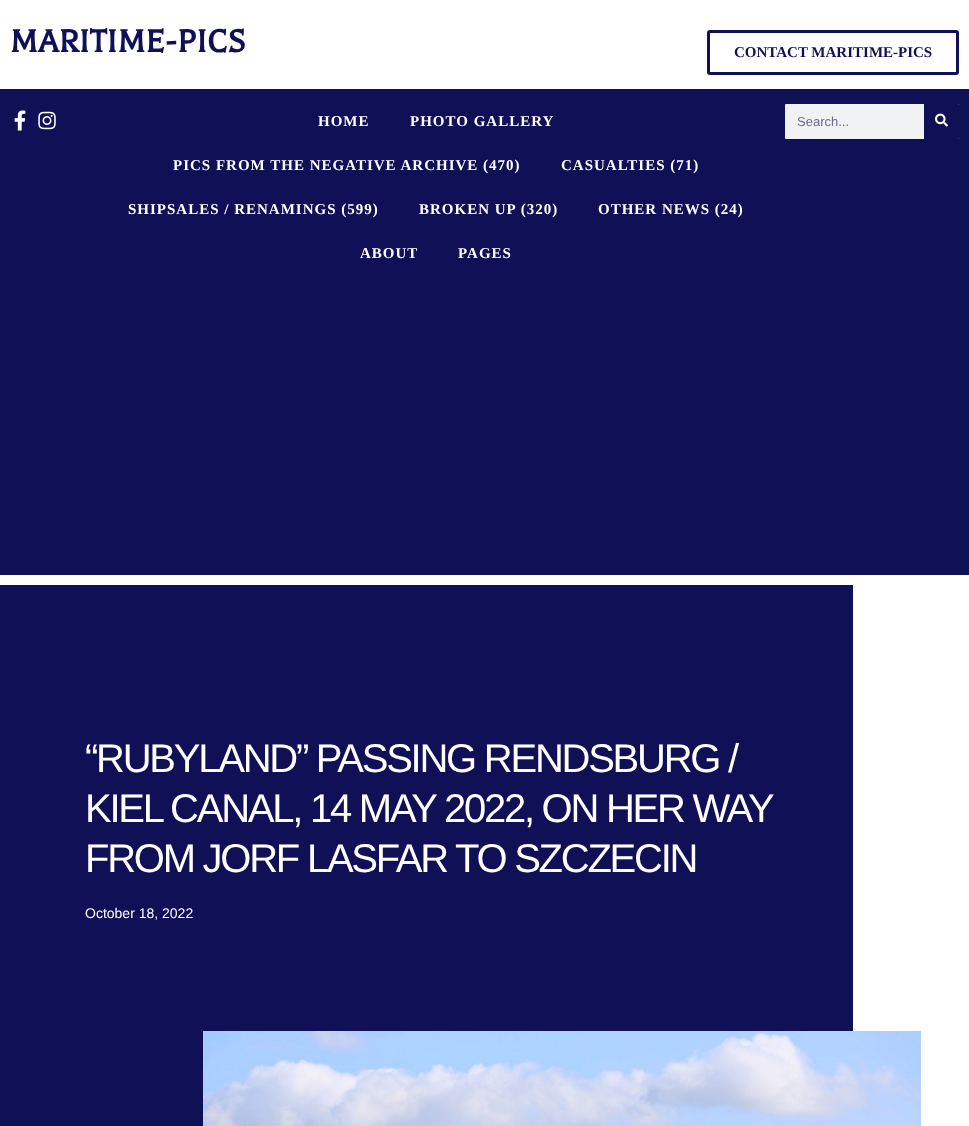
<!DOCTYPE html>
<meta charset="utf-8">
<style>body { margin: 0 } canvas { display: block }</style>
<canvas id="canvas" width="969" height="1126"></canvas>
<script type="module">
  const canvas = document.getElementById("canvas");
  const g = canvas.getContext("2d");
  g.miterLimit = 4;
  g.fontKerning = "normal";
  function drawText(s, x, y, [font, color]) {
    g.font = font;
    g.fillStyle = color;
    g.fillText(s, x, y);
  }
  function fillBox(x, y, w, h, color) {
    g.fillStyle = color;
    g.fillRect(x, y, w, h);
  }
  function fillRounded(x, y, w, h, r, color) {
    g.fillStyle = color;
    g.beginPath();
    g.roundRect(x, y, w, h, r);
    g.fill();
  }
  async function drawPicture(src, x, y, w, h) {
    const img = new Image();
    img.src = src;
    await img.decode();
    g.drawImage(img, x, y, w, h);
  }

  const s1 = ["bold 36px Balthazar", "#101057"];
  const s2 = ["bold 15px Liberation Serif", "#101057"];
  const s3 = ["bold 15px Liberation Serif", "#FFFFFF"];
  const s4 = ["13px Liberation Sans", "#6A6A95"];
  const s5 = ["40px Liberation Sans", "#FFFFFF"];
  const s6 = ["14px Liberation Sans", "#FFFFFF"];

  fillBox(0, 0, 969, 1126, "#FFFFFF");
  g.letterSpacing = "0.4px";
  drawText("MARITIME-PICS", 10, 52, s1);
  g.beginPath();
  g.roundRect(708.5, 31.5, 249, 42, 1.5);
  g.strokeStyle = "#101057";
  g.lineWidth = 3;
  g.stroke();
  g.letterSpacing = "0px";
  drawText("CONTACT MARITIME-PICS", 734, 57, s2);
  fillBox(0, 89, 969, 486, "#101057");
  await drawPicture("pic1.png", 14, 110, 12, 21);
  await drawPicture("pic2.png", 38, 111, 18, 19);
  g.letterSpacing = "1px";
  drawText("HOME", 318, 126, s3);
  drawText("PHOTO GALLERY", 410, 126, s3);
  drawText("PICS FROM THE NEGATIVE ARCHIVE (470)", 173, 170, s3);
  drawText("CASUALTIES (71)", 561, 170, s3);
  drawText("SHIPSALES / RENAMINGS (599)", 128, 214, s3);
  drawText("BROKEN UP (320)", 419, 214, s3);
  drawText("OTHER NEWS (24)", 598, 214, s3);
  drawText("ABOUT", 360, 258, s3);
  drawText("PAGES", 458, 258, s3);
  fillRounded(785, 104, 174, 35, 1, "#F1F2F3");
  g.letterSpacing = "0px";
  drawText("Search...", 797, 126, s4);
  g.fillStyle = "#101057";
  g.beginPath();
  g.roundRect(924, 104, 35, 35, [0, 1, 1, 0]);
  g.fill();
  await drawPicture("pic3.png", 935, 113, 13, 14);
  fillBox(0, 585, 853, 541, "#101057");
  g.letterSpacing = "-2.25px";
  drawText("“RUBYLAND” PASSING RENDSBURG /", 85, 772, s5);
  drawText("KIEL CANAL, 14 MAY 2022, ON HER WAY", 85, 822, s5);
  drawText("FROM JORF LASFAR TO SZCZECIN", 85, 872, s5);
  g.letterSpacing = "0px";
  drawText("October 18, 2022", 85, 918, s6);
  await drawPicture("pic4.png", 203, 1031, 718, 95);
</script>
